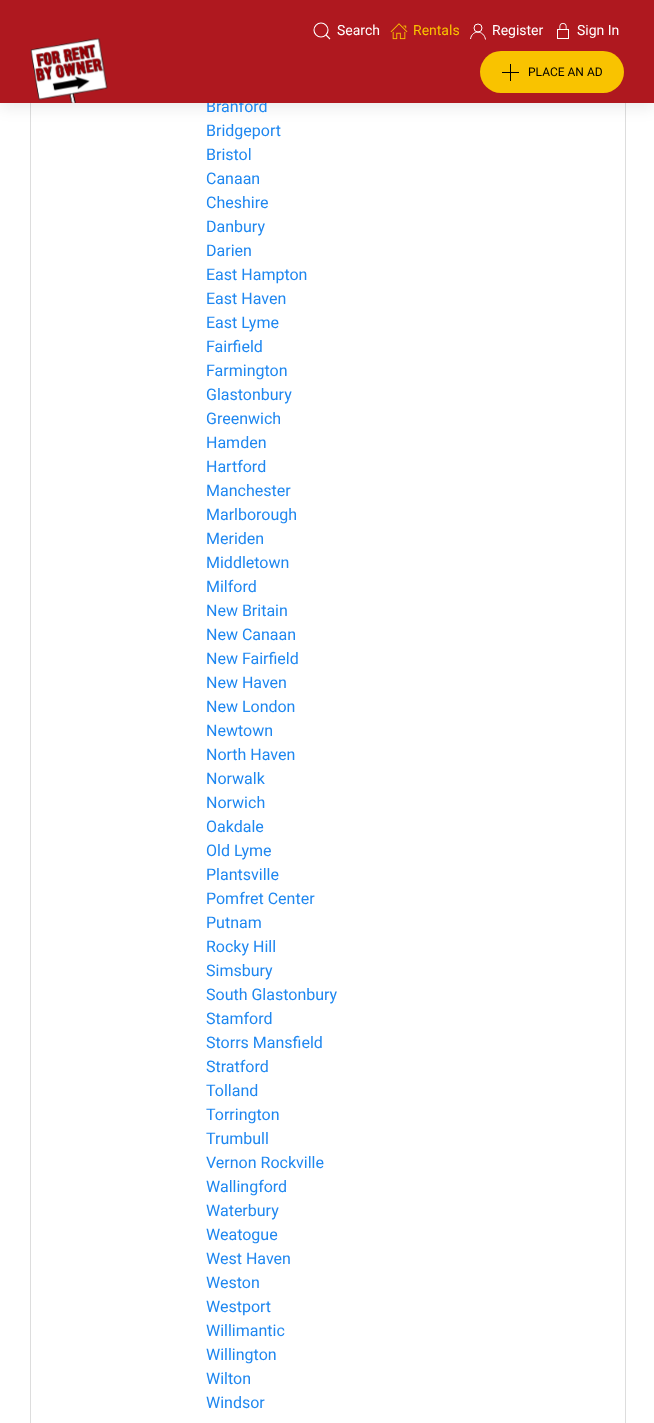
<!DOCTYPE html>
<meta charset="utf-8">
<style>body { margin: 0 } canvas { display: block }</style>
<canvas id="canvas" width="654" height="1423"></canvas>
<script type="module">
  const canvas = document.getElementById("canvas");
  const g = canvas.getContext("2d");
  g.miterLimit = 4;
  g.fontKerning = "normal";
  function drawText(s, x, y, [font, color]) {
    g.font = font;
    g.fillStyle = color;
    g.fillText(s, x, y);
  }
  function fillBox(x, y, w, h, color) {
    g.fillStyle = color;
    g.fillRect(x, y, w, h);
  }
  function fillRounded(x, y, w, h, r, color) {
    g.fillStyle = color;
    g.beginPath();
    g.roundRect(x, y, w, h, r);
    g.fill();
  }
  async function drawPicture(src, x, y, w, h) {
    const img = new Image();
    img.src = src;
    await img.decode();
    g.drawImage(img, x, y, w, h);
  }

  const s1 = ["16px Roboto", "#1E87F0"];
  const s2 = ["14px Roboto", "#FFFFFF"];
  const s3 = ["14px Roboto", "#F9C300"];
  const s4 = ["12px Roboto", "#000000"];

  fillBox(0, 0, 654, 1423, "#FFFFFF");
  g.strokeStyle = "#DDDDDD";
  g.strokeRect(30.5, -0.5, 595, 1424);
  g.fillStyle = "rgba(0, 0, 0, 0.08)";
  g.filter = "blur(7.5px)";
  g.beginPath();
  g.rect(0, 5, 654, 103);
  g.fill();
  g.filter = "none";
  drawText("Branford", 206, 112, s1);
  fillBox(0, 0, 654, 103, "#AF181F");
  await drawPicture("pic1.png", 30, 38, 78, 65);
  g.beginPath();
  g.arc(321, 30, 7, 0, Math.PI * 2);
  g.strokeStyle = "#FFFFFF";
  g.lineWidth = 1.1;
  g.stroke();
  g.beginPath();
  g.moveTo(326, 35);
  g.lineTo(330, 39);
  g.closePath();
  g.stroke();
  drawText("Search", 337, 35, s2);
  await drawPicture("pic2.png", 390, 23, 18, 17);
  drawText("Rentals", 413, 35, s3);
  g.beginPath();
  g.arc(478, 28, 4, 0, Math.PI * 2);
  g.lineWidth = 1;
  g.stroke();
  g.beginPath();
  g.moveTo(470.5, 39);
  g.bezierCurveTo(472, 29.5, 484, 30, 485.5, 39.5);
  g.stroke();
  drawText("Register", 492, 35, s2);
  await drawPicture("pic3.png", 557, 22, 12, 17);
  drawText("Sign In", 577, 35, s2);
  fillRounded(480, 51, 144, 42, 21, "#F9C300");
  fillBox(510, 64, 1, 17, "#000000");
  fillBox(502, 72, 17, 1, "#000000");
  drawText("PLACE AN AD", 528, 76, s4);
  drawText("Bridgeport", 206, 136, s1);
  drawText("Bristol", 206, 160, s1);
  drawText("Canaan", 206, 184, s1);
  drawText("Cheshire", 206, 208, s1);
  drawText("Danbury", 206, 232, s1);
  drawText("Darien", 206, 256, s1);
  drawText("East Hampton", 206, 280, s1);
  drawText("East Haven", 206, 304, s1);
  drawText("East Lyme", 206, 328, s1);
  drawText("Fairfield", 206, 352, s1);
  drawText("Farmington", 206, 376, s1);
  drawText("Glastonbury", 206, 400, s1);
  drawText("Greenwich", 206, 424, s1);
  drawText("Hamden", 206, 448, s1);
  drawText("Hartford", 206, 472, s1);
  drawText("Manchester", 206, 496, s1);
  drawText("Marlborough", 206, 520, s1);
  drawText("Meriden", 206, 544, s1);
  drawText("Middletown", 206, 568, s1);
  drawText("Milford", 206, 592, s1);
  drawText("New Britain", 206, 616, s1);
  drawText("New Canaan", 206, 640, s1);
  drawText("New Fairfield", 206, 664, s1);
  drawText("New Haven", 206, 688, s1);
  drawText("New London", 206, 712, s1);
  drawText("Newtown", 206, 736, s1);
  drawText("North Haven", 206, 760, s1);
  drawText("Norwalk", 206, 784, s1);
  drawText("Norwich", 206, 808, s1);
  drawText("Oakdale", 206, 832, s1);
  drawText("Old Lyme", 206, 856, s1);
  drawText("Plantsville", 206, 880, s1);
  drawText("Pomfret Center", 206, 904, s1);
  drawText("Putnam", 206, 928, s1);
  drawText("Rocky Hill", 206, 952, s1);
  drawText("Simsbury", 206, 976, s1);
  drawText("South Glastonbury", 206, 1000, s1);
  drawText("Stamford", 206, 1024, s1);
  drawText("Storrs Mansfield", 206, 1048, s1);
  drawText("Stratford", 206, 1072, s1);
  drawText("Tolland", 206, 1096, s1);
  drawText("Torrington", 206, 1120, s1);
  drawText("Trumbull", 206, 1144, s1);
  drawText("Vernon Rockville", 206, 1168, s1);
  drawText("Wallingford", 206, 1192, s1);
  drawText("Waterbury", 206, 1216, s1);
  drawText("Weatogue", 206, 1240, s1);
  drawText("West Haven", 206, 1264, s1);
  drawText("Weston", 206, 1288, s1);
  drawText("Westport", 206, 1312, s1);
  drawText("Willimantic", 206, 1336, s1);
  drawText("Willington", 206, 1360, s1);
  drawText("Wilton", 206, 1384, s1);
  drawText("Windsor", 206, 1408, s1);
</script>
